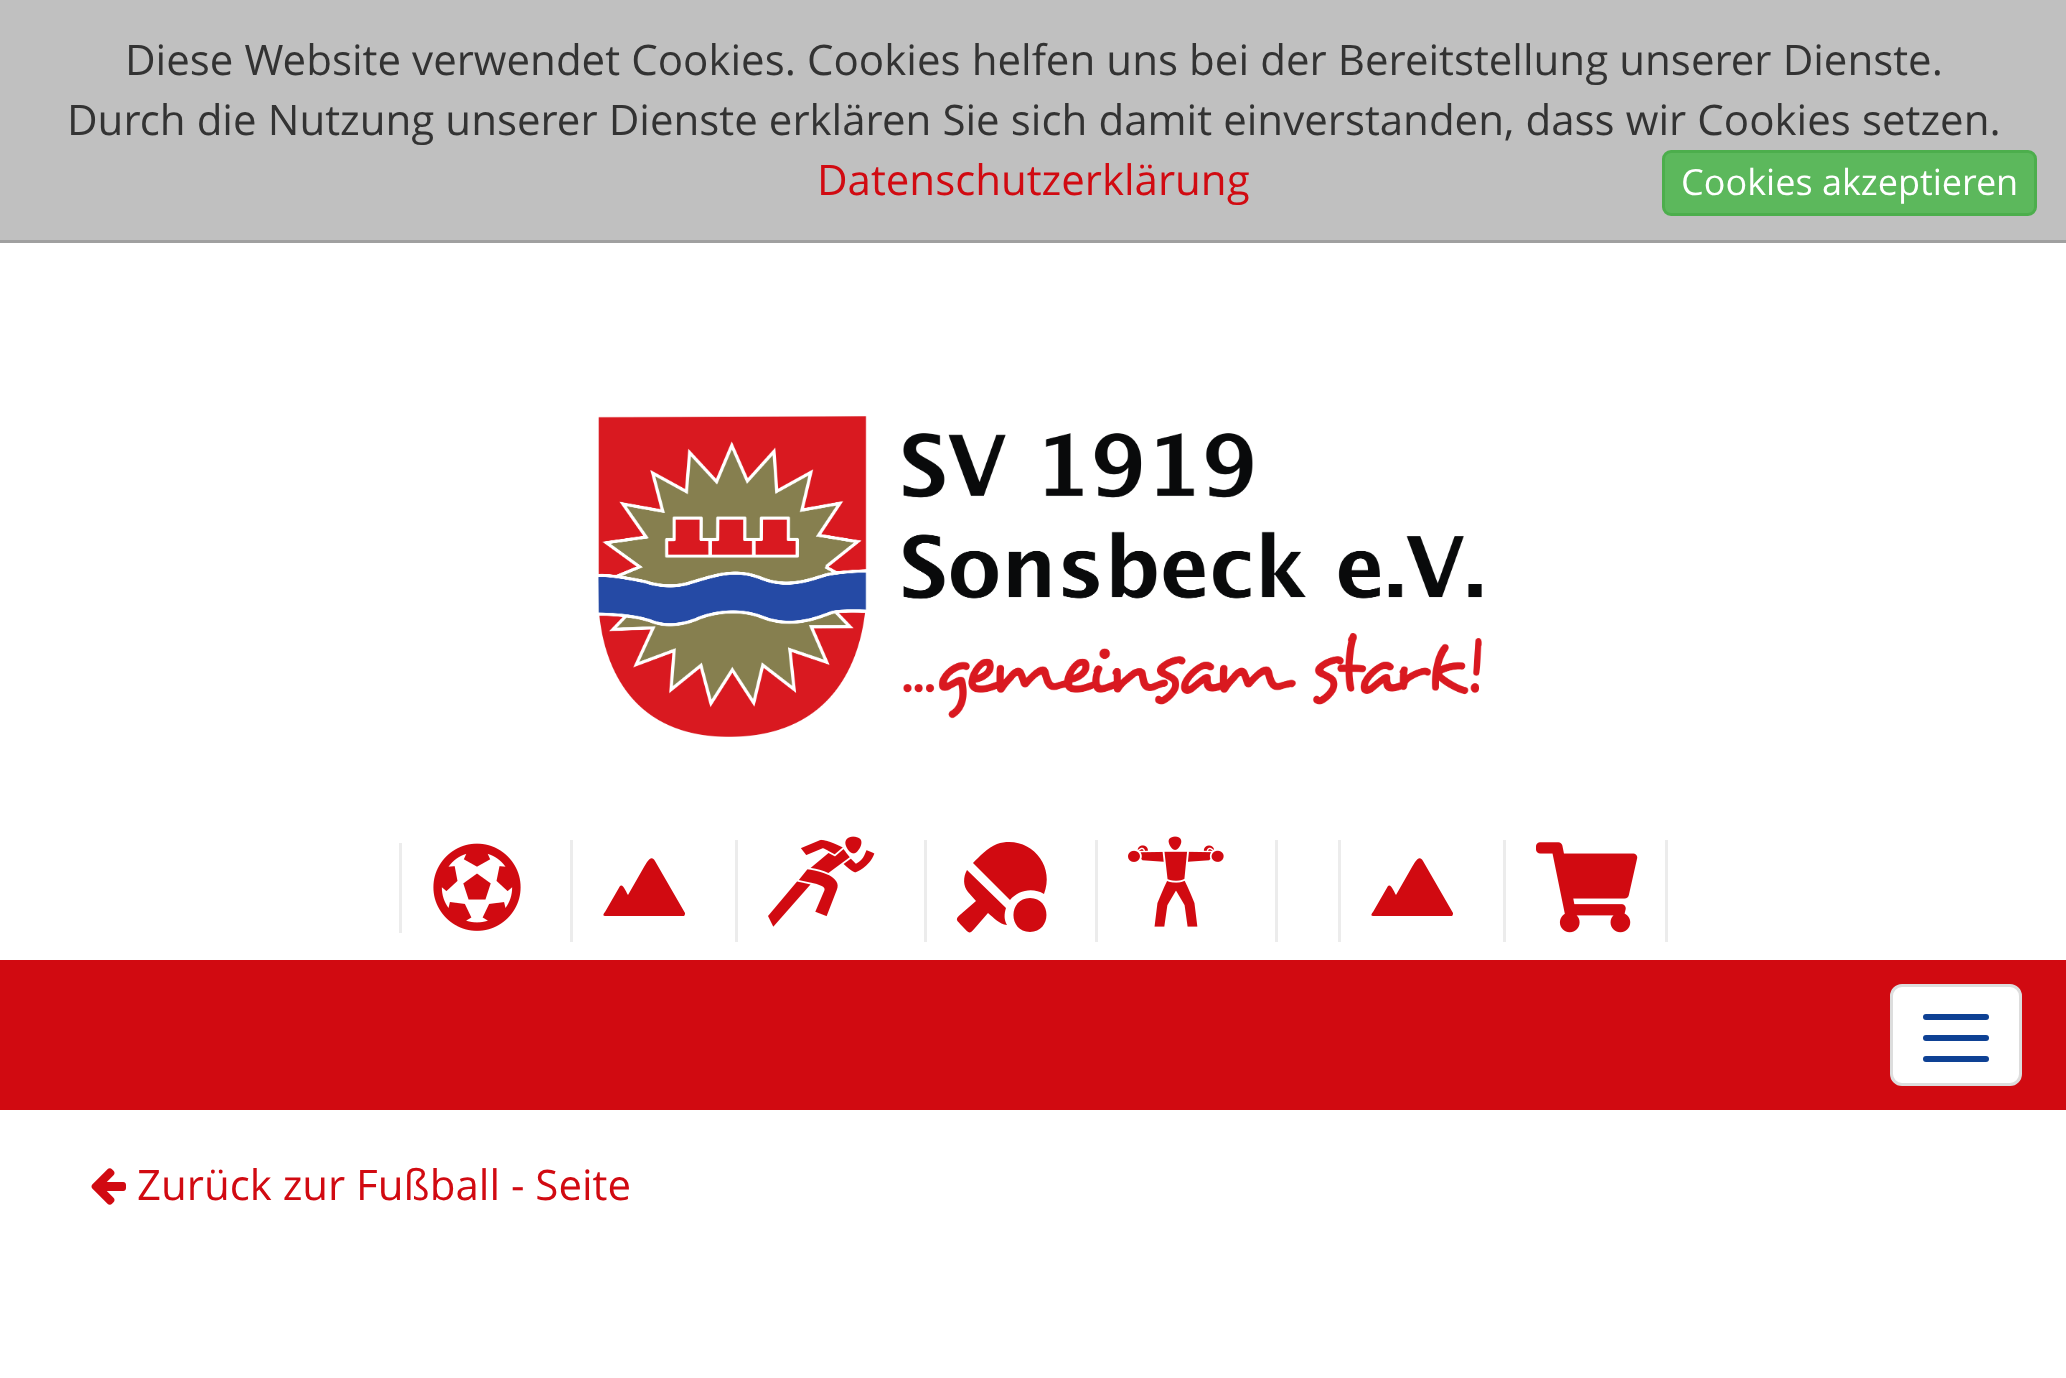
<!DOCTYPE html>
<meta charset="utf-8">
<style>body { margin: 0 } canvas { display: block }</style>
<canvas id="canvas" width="2066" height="1378"></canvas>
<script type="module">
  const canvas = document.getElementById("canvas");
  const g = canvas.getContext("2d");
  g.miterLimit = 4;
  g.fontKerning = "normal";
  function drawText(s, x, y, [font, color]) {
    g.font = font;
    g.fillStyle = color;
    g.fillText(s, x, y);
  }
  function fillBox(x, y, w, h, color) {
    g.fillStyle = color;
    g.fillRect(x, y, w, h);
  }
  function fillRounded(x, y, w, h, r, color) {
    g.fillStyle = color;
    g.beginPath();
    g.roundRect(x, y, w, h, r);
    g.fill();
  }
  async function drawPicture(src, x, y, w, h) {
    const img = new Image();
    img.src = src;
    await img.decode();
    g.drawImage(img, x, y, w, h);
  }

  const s1 = ["42px Open Sans", "#333333"];
  const s2 = ["42px Open Sans", "#D10A11"];
  const s3 = ["36px Open Sans", "#FFFFFF"];

  fillBox(0, 0, 2066, 1378, "#FFFFFF");
  fillBox(0, 0, 2066, 240, "#C0C0C0");
  fillBox(0, 240, 2066, 3, "#A0A0A0");
  g.wordSpacing = "0.25px";
  drawText("Diese Website verwendet Cookies. Cookies helfen uns bei der Bereitstellung unserer Dienste.", 125, 75, s1);
  drawText("Durch die Nutzung unserer Dienste erklären Sie sich damit einverstanden, dass wir Cookies setzen.", 67, 135, s1);
  g.wordSpacing = "0px";
  drawText("Datenschutzerklärung", 817, 195, s2);
  g.fillStyle = "#5CB85C";
  g.beginPath();
  g.roundRect(1663.5, 151.5, 372, 63, 7.5);
  g.fill();
  g.strokeStyle = "#4CAE4C";
  g.lineWidth = 3;
  g.stroke();
  drawText("Cookies akzeptieren", 1681, 195, s3);
  await drawPicture("pic1.png", 598, 416, 884, 321);
  fillBox(399, 843, 3, 90, "#ECECEC");
  fillBox(570, 840, 3, 102, "#ECECEC");
  await drawPicture("pic2.png", 433, 843, 88, 88);
  fillBox(735, 840, 3, 102, "#ECECEC");
  g.fillStyle = "#D10A11";
  g.beginPath();
  g.moveTo(685, 913);
  g.bezierCurveTo(685, 914, 685, 915, 684, 916);
  g.lineTo(605, 916);
  g.bezierCurveTo(602, 916, 604, 913, 605, 912);
  g.lineTo(620, 886);
  g.bezierCurveTo(623, 883, 627, 894, 628, 895);
  g.lineTo(644, 867);
  g.bezierCurveTo(646, 864, 651, 853, 655, 861);
  g.closePath();
  g.fill();
  await drawPicture("pic3.png", 768, 836, 107, 91);
  fillBox(924, 840, 3, 102, "#ECECEC");
  fillBox(1095, 840, 3, 102, "#ECECEC");
  g.fillStyle = "#D10A11";
  g.beginPath();
  g.moveTo(1044, 894);
  g.bezierCurveTo(1056, 864, 1028, 834, 997, 844);
  g.bezierCurveTo(987, 848, 980, 856, 973, 863);
  g.lineTo(1010, 900);
  g.bezierCurveTo(1018, 890, 1033, 887, 1044, 894);
  g.closePath();
  g.moveTo(1006, 908);
  g.lineTo(967, 870);
  g.bezierCurveTo(963, 877, 963, 886, 968, 892);
  g.lineTo(976, 901);
  g.lineTo(961, 914);
  g.bezierCurveTo(954, 920, 957, 920, 963, 927);
  g.bezierCurveTo(969, 933, 969, 935, 975, 928);
  g.lineTo(988, 913);
  g.bezierCurveTo(994, 918, 999, 924, 1007, 925);
  g.bezierCurveTo(1004, 920, 1004, 914, 1006, 908);
  g.closePath();
  g.moveTo(1030, 898);
  g.bezierCurveTo(1008, 898, 1008, 932, 1030, 932);
  g.bezierCurveTo(1052, 932, 1052, 898, 1030, 898);
  g.closePath();
  g.fill();
  await drawPicture("pic4.png", 1128, 836, 96, 91);
  fillBox(1275, 840, 3, 102, "#ECECEC");
  fillBox(1338, 840, 3, 102, "#ECECEC");
  fillBox(1503, 840, 3, 102, "#ECECEC");
  g.fillStyle = "#D10A11";
  g.beginPath();
  g.moveTo(1453, 913);
  g.bezierCurveTo(1453, 914, 1453, 915, 1452, 916);
  g.lineTo(1373, 916);
  g.bezierCurveTo(1370, 916, 1372, 913, 1373, 912);
  g.lineTo(1388, 886);
  g.bezierCurveTo(1391, 883, 1395, 894, 1396, 895);
  g.lineTo(1412, 867);
  g.bezierCurveTo(1414, 864, 1419, 853, 1423, 861);
  g.closePath();
  g.fill();
  fillBox(1665, 840, 3, 102, "#ECECEC");
  await drawPicture("pic5.png", 1536, 842, 102, 91);
  fillBox(0, 960, 2066, 150, "#D10A11");
  g.fillStyle = "#FFFFFF";
  g.beginPath();
  g.roundRect(1891.5, 985.5, 129, 99, 10.5);
  g.fill();
  g.strokeStyle = "#DDDDDD";
  g.stroke();
  fillRounded(1923, 1014, 66, 6, 3, "#0E4194");
  fillRounded(1923, 1035, 66, 6, 3, "#0E4194");
  fillRounded(1923, 1056, 66, 6, 3, "#0E4194");
  await drawPicture("pic6.png", 91, 1168, 35, 37);
  drawText("Zurück zur Fußball - Seite", 137, 1200, s2);
</script>
